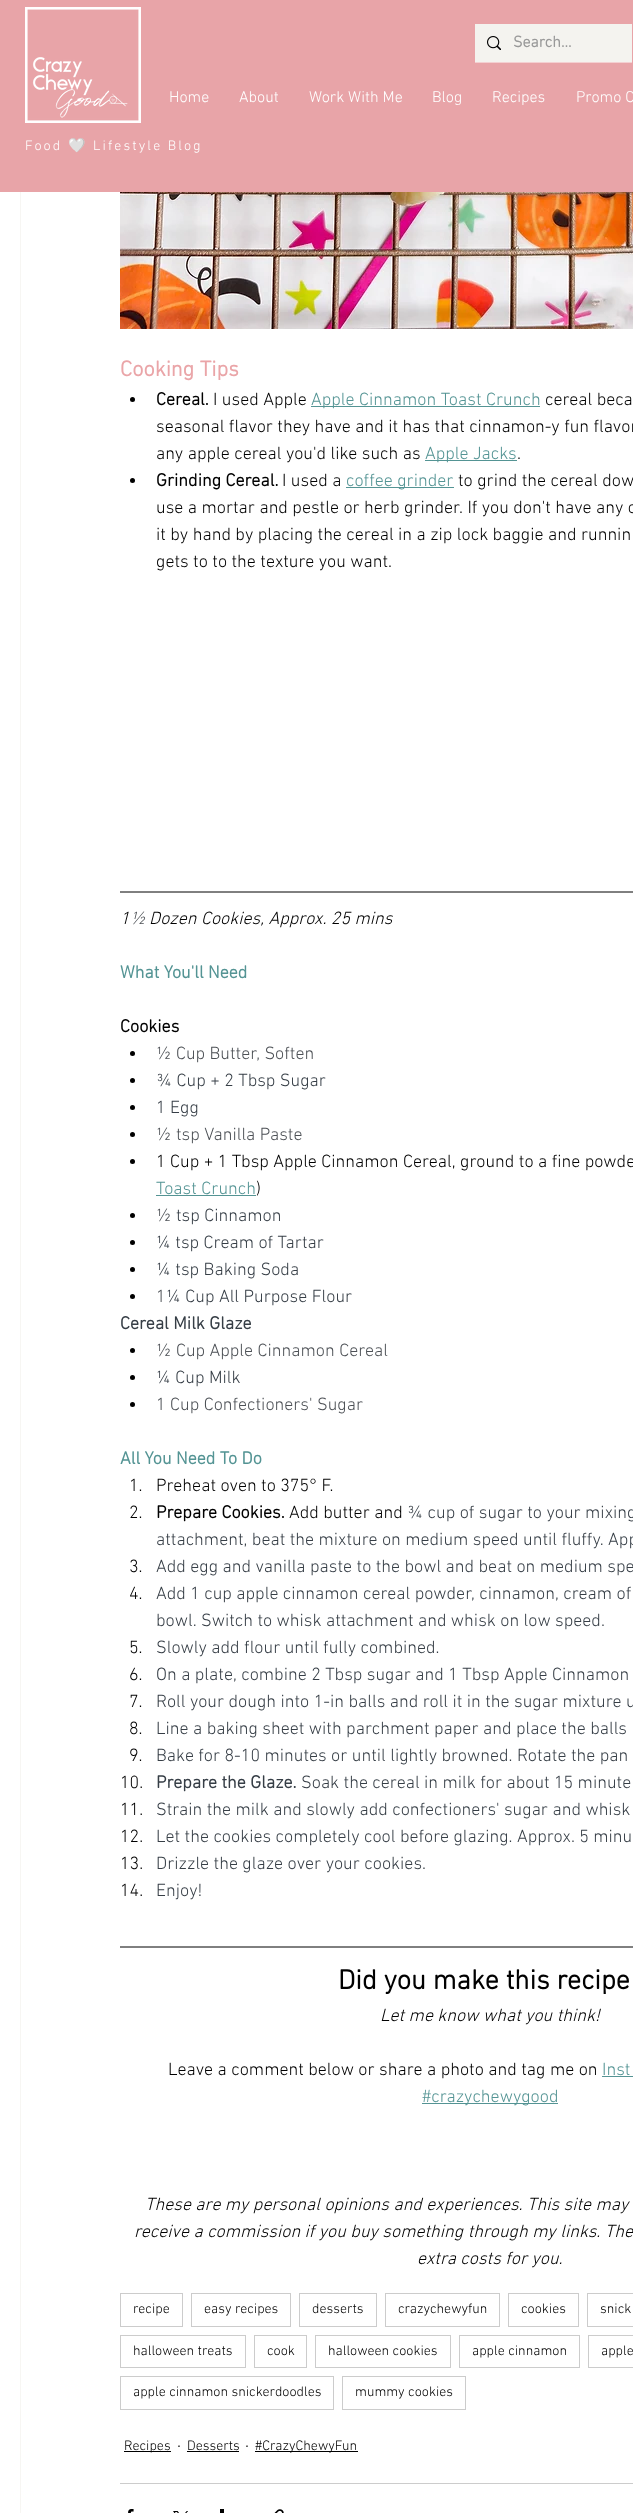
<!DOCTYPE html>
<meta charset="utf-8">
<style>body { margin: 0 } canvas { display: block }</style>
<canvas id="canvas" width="633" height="2513"></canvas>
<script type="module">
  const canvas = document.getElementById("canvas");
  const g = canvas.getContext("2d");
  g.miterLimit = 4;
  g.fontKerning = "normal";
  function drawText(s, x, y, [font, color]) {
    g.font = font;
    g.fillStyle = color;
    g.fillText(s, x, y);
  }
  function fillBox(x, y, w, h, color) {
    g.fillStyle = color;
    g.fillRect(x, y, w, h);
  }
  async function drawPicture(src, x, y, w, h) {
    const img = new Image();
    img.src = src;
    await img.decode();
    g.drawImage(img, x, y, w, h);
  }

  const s1 = ["bold 16px 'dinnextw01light'", "#999999"];
  const s2 = ["300 16px 'dinnextw01light'", "#FFFFFF"];
  const s3 = ["300 14px 'dinnextw01light'", "#FFFFFF"];
  const s4 = ["14px Noto Color Emoji", "#FFFFFF"];
  const s5 = ["bold 22px 'dinnextw01light'", "#EAA5A8"];
  const s6 = ["bold 18px 'dinnextw01light'", "#000000"];
  const s7 = ["300 18px 'dinnextw01light'", "#000000"];
  const s8 = ["300 18px 'dinnextw01light'", "#549494"];
  const s9 = ["italic 300 18px 'dinnextw01light'", "#000000"];
  const s10 = ["italic 300 18px 'dinnextw01light'", "#4D5156"];
  const s11 = ["bold 18px 'dinnextw01light'", "#549494"];
  const s12 = ["300 18px 'dinnextw01light'", "#4D5156"];
  const s13 = ["300 18px 'dinnextw01light'", "#363E46"];
  const s14 = ["bold 18px 'dinnextw01light'", "#363E46"];
  const s15 = ["bold 28px 'dinnextw01light'", "#000000"];
  const s16 = ["300 14px 'dinnextw01light'", "#000000"];

  fillBox(0, 0, 633, 2513, "#FFFFFF");
  g.strokeStyle = "#F7F6F3";
  g.strokeRect(20.5, -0.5, 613, 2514);
  fillBox(0, 0, 633, 192, "#E8A4A8");
  fillBox(475, 62, 157, 1, "#F4D0D2");
  fillBox(475, 24, 157, 38, "#F4F3EF");
  await drawPicture("pic1.png", 487, 36, 14, 14);
  drawText("Search...", 513, 47, s1);
  drawText("Home", 169, 102, s2);
  drawText("About", 239, 102, s2);
  drawText("Work With Me", 309, 102, s2);
  drawText("Blog", 432, 102, s2);
  drawText("Recipes", 492, 102, s2);
  drawText("Promo C", 576, 102, s2);
  await drawPicture("pic2.png", 25, 7, 116, 116);
  g.letterSpacing = "2.1px";
  drawText("Food", 25, 150, s3);
  drawText("🤍", 68, 150, s4);
  drawText("Lifestyle Blog", 93, 150, s3);
  await drawPicture("pic3.png", 120, 192, 513, 137);
  g.letterSpacing = "0px";
  drawText("Cooking Tips", 120, 376, s5);
  g.fillStyle = "#000000";
  g.beginPath();
  g.arc(132.5, 399.5, 2.5, 0, Math.PI * 2);
  g.fill();
  drawText("Cereal.", 156, 405, s6);
  drawText("I used Apple", 213, 405, s7);
  fillBox(311, 406, 229, 1, "#549494");
  drawText("Apple Cinnamon Toast Crunch", 311, 405, s8);
  drawText("cereal beca", 545, 405, s7);
  drawText("seasonal flavor they have and it has that cinnamon-y fun flavor", 156, 432, s7);
  drawText("any apple cereal you'd like such as", 156, 459, s7);
  fillBox(425, 460, 92, 1, "#549494");
  drawText("Apple Jacks", 425, 459, s8);
  drawText(".", 517, 459, s7);
  g.beginPath();
  g.arc(132.5, 480.5, 2.5, 0, Math.PI * 2);
  g.fill();
  drawText("Grinding Cereal.", 156, 486, s6);
  drawText("I used a", 282, 486, s7);
  fillBox(346, 487, 108, 1, "#549494");
  drawText("coffee grinder", 346, 486, s8);
  drawText("to grind the cereal dow", 458, 486, s7);
  drawText("use a mortar and pestle or herb grinder. If you don't have any o", 156, 513, s7);
  drawText("it by hand by placing the cereal in a zip lock baggie and runnin", 156, 540, s7);
  drawText("gets to to the texture you want.", 156, 567, s7);
  g.beginPath();
  g.moveTo(120, 892);
  g.lineTo(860, 892);
  g.strokeStyle = "#000000";
  g.stroke();
  drawText("1", 120, 924, s9);
  drawText("½", 130, 924, s10);
  drawText("Dozen Cookies, Approx. 25 mins", 149, 924, s9);
  drawText("What You'll Need", 120, 978, s11);
  drawText("Cookies", 120, 1032, s6);
  g.beginPath();
  g.arc(132.5, 1053.5, 2.5, 0, Math.PI * 2);
  g.fill();
  drawText("½ Cup Butter, Soften", 156, 1059, s12);
  g.fillStyle = "#000000";
  g.beginPath();
  g.arc(132.5, 1080.5, 2.5, 0, Math.PI * 2);
  g.fill();
  drawText("¾ Cup + 2 Tbsp Sugar", 156, 1086, s13);
  g.fillStyle = "#000000";
  g.beginPath();
  g.arc(132.5, 1107.5, 2.5, 0, Math.PI * 2);
  g.fill();
  drawText("1 Egg", 156, 1113, s13);
  g.fillStyle = "#000000";
  g.beginPath();
  g.arc(132.5, 1134.5, 2.5, 0, Math.PI * 2);
  g.fill();
  drawText("½ tsp Vanilla Paste", 156, 1140, s12);
  g.fillStyle = "#000000";
  g.beginPath();
  g.arc(132.5, 1161.5, 2.5, 0, Math.PI * 2);
  g.fill();
  drawText("1 Cup + 1 Tbsp Apple Cinnamon Cereal, ground to a fine powde", 156, 1167, s7);
  drawText("Toast Crunch", 156, 1194, s8);
  fillBox(156, 1195, 100, 1, "#549494");
  drawText(")", 256, 1194, s7);
  g.beginPath();
  g.arc(132.5, 1215.5, 2.5, 0, Math.PI * 2);
  g.fill();
  drawText("½", 156, 1221, s12);
  drawText("tsp Cinnamon", 176, 1221, s13);
  g.fillStyle = "#000000";
  g.beginPath();
  g.arc(132.5, 1242.5, 2.5, 0, Math.PI * 2);
  g.fill();
  drawText("¼ tsp Cream of Tartar", 156, 1248, s13);
  g.fillStyle = "#000000";
  g.beginPath();
  g.arc(132.5, 1269.5, 2.5, 0, Math.PI * 2);
  g.fill();
  drawText("¼ tsp Baking Soda", 156, 1275, s13);
  g.fillStyle = "#000000";
  g.beginPath();
  g.arc(132.5, 1296.5, 2.5, 0, Math.PI * 2);
  g.fill();
  drawText("1", 156, 1302, s12);
  drawText("¼ Cup All Purpose Flour", 166, 1302, s13);
  drawText("Cereal Milk Glaze", 120, 1329, s14);
  g.fillStyle = "#000000";
  g.beginPath();
  g.arc(132.5, 1350.5, 2.5, 0, Math.PI * 2);
  g.fill();
  drawText("½ Cup Apple Cinnamon Cereal", 156, 1356, s12);
  g.fillStyle = "#000000";
  g.beginPath();
  g.arc(132.5, 1377.5, 2.5, 0, Math.PI * 2);
  g.fill();
  drawText("¼ Cup Milk", 156, 1383, s13);
  g.fillStyle = "#000000";
  g.beginPath();
  g.arc(132.5, 1404.5, 2.5, 0, Math.PI * 2);
  g.fill();
  drawText("1 Cup Confectioners' Sugar", 156, 1410, s12);
  drawText("All You Need To Do", 120, 1464, s11);
  drawText("1.", 129, 1491, s7);
  drawText("Preheat oven to 375° F.", 156, 1491, s7);
  drawText("2.", 129, 1518, s7);
  drawText("Prepare Cookies.", 156, 1518, s6);
  drawText("Add butter and", 289, 1518, s7);
  drawText("¾ cup of sugar to your mixing", 407, 1518, s13);
  drawText("attachment, beat the mixture on medium speed until fluffy. App", 156, 1545, s13);
  drawText("3.", 129, 1572, s7);
  drawText("Add egg and vanilla paste to the bowl and beat on medium spe", 156, 1572, s13);
  drawText("4.", 129, 1599, s7);
  drawText("Add 1 cup apple cinnamon cereal powder, cinnamon, cream of", 156, 1599, s13);
  drawText("bowl. Switch to whisk attachment and whisk on low speed.", 156, 1626, s13);
  drawText("5.", 129, 1653, s7);
  drawText("Slowly add flour until fully combined.", 156, 1653, s13);
  drawText("6.", 129, 1680, s7);
  drawText("On a plate, combine 2 Tbsp sugar and 1 Tbsp Apple Cinnamon", 156, 1680, s13);
  drawText("7.", 129, 1707, s7);
  drawText("Roll your dough into 1-in balls and roll it in the sugar mixture u", 156, 1707, s13);
  drawText("8.", 129, 1734, s7);
  drawText("Line a baking sheet with parchment paper and place the balls", 156, 1734, s13);
  drawText("9.", 129, 1761, s7);
  drawText("Bake for 8-10 minutes or until lightly browned. Rotate the pan", 156, 1761, s13);
  drawText("10.", 120, 1788, s7);
  drawText("Prepare the Glaze.", 156, 1788, s14);
  drawText("Soak the cereal in milk for about 15 minute", 301, 1788, s13);
  drawText("11.", 120, 1815, s7);
  drawText("Strain the milk and slowly add confectioners' sugar and whisk", 156, 1815, s13);
  drawText("12.", 120, 1842, s7);
  drawText("Let the cookies completely cool before glazing. Approx. 5 minu", 156, 1842, s13);
  drawText("13.", 120, 1869, s7);
  drawText("Drizzle the glaze over your cookies.", 156, 1869, s13);
  drawText("14.", 120, 1896, s7);
  drawText("Enjoy!", 156, 1896, s13);
  g.beginPath();
  g.moveTo(120, 1947);
  g.lineTo(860, 1947);
  g.stroke();
  drawText("Did you make this recipe", 338, 1989, s15);
  drawText("Let me know what you think!", 380, 2021, s9);
  drawText("Leave a comment below or share a photo and tag me on", 168, 2075, s7);
  drawText("Inst", 602, 2075, s8);
  fillBox(602, 2076, 31, 1, "#549494");
  fillBox(422, 2103, 136, 1, "#549494");
  drawText("#crazychewygood", 422, 2102, s8);
  drawText("These are my personal opinions and experiences. This site may", 145, 2210, s9);
  drawText("receive a commission if you buy something through my links. The", 134, 2237, s9);
  drawText("extra costs for you.", 417, 2264, s9);
  g.strokeStyle = "#CCCCCC";
  g.strokeRect(120.5, 2293.5, 62, 33);
  drawText("recipe", 133, 2313, s16);
  g.strokeRect(191.5, 2293.5, 99, 33);
  drawText("easy recipes", 204, 2313, s16);
  g.strokeRect(299.5, 2293.5, 77, 33);
  drawText("desserts", 312, 2313, s16);
  g.strokeRect(385.5, 2293.5, 114, 33);
  drawText("crazychewyfun", 398, 2313, s16);
  g.strokeRect(508.5, 2293.5, 70, 33);
  drawText("cookies", 521, 2313, s16);
  g.strokeRect(587.5, 2293.5, 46, 33);
  drawText("snick", 600, 2313, s16);
  g.strokeRect(120.5, 2335.5, 125, 32);
  drawText("halloween treats", 133, 2355, s16);
  g.strokeRect(254.5, 2335.5, 52, 32);
  drawText("cook", 267, 2355, s16);
  g.strokeRect(315.5, 2335.5, 135, 32);
  drawText("halloween cookies", 328, 2355, s16);
  g.strokeRect(459.5, 2335.5, 120, 32);
  drawText("apple cinnamon", 472, 2355, s16);
  g.strokeRect(588.5, 2335.5, 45, 32);
  drawText("apple", 601, 2355, s16);
  g.strokeRect(120.5, 2376.5, 213, 33);
  drawText("apple cinnamon snickerdoodles", 133, 2396, s16);
  g.strokeRect(342.5, 2376.5, 123, 33);
  drawText("mummy cookies", 355, 2396, s16);
  fillBox(124, 2451, 47, 1, "#000000");
  drawText("Recipes", 124, 2450, s16);
  drawText("·", 177, 2451, s7);
  drawText("Desserts", 187, 2450, s16);
  fillBox(187, 2451, 52, 1, "#000000");
  drawText("·", 245, 2451, s7);
  fillBox(255, 2451, 103, 1, "#000000");
  drawText("#CrazyChewyFun", 255, 2450, s16);
  fillBox(120, 2483, 513, 1, "#CCCCCC");
  await drawPicture("pic4.png", 128, 2509, 6, 4);
  await drawPicture("pic5.png", 173, 2511, 15, 2);
  fillBox(220, 2509, 4, 4, "#000000");
  await drawPicture("pic6.png", 274, 2509, 10, 4);
</script>
